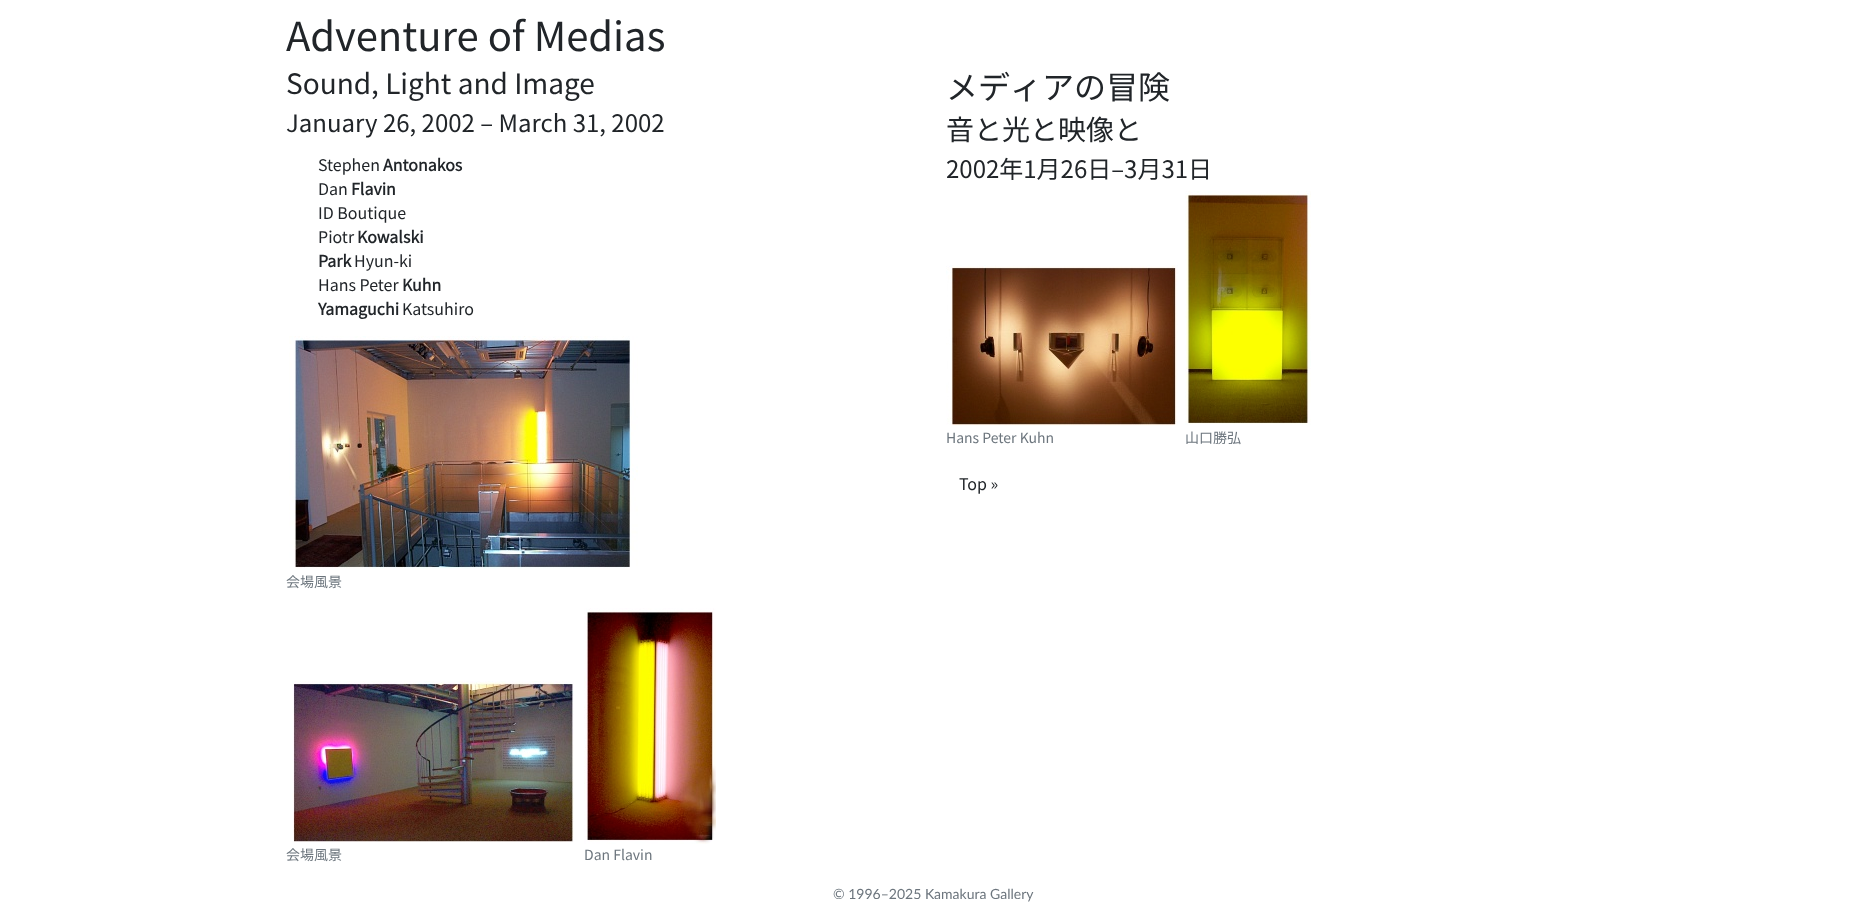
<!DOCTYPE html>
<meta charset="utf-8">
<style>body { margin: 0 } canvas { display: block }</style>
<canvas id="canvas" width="1867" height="912"></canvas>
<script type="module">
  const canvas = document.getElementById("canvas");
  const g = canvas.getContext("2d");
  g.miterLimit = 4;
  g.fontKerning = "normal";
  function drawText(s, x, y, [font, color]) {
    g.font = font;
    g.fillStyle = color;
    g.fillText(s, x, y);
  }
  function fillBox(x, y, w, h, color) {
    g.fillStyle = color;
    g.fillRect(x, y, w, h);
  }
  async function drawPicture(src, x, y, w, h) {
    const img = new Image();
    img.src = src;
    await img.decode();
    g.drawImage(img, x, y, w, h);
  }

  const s1 = ["100 40px Noto Sans JP", "#212529"];
  const s2 = ["100 28px Noto Sans JP", "#212529"];
  const s3 = ["100 24px Noto Sans JP", "#212529"];
  const s4 = ["100 16px Noto Sans JP", "#212529"];
  const s5 = ["bold 16px Noto Sans JP", "#212529"];
  const s6 = ["100 14px Noto Sans JP", "#6C757D"];
  const s7 = ["100 32px Noto Sans JP", "#212529"];
  const s8 = ["14px Lato", "#6C757D"];

  fillBox(0, 0, 1867, 912, "#FFFFFF");
  drawText("Adventure of Medias", 286, 51, s1);
  drawText("Sound, Light and Image", 286, 94, s2);
  drawText("January 26, 2002 – March 31, 2002", 286, 132, s3);
  drawText("Stephen", 318, 171, s4);
  drawText("Antonakos", 383, 171, s5);
  drawText("Dan", 318, 195, s4);
  drawText("Flavin", 351, 195, s5);
  drawText("ID Boutique", 318, 219, s4);
  drawText("Piotr", 318, 243, s4);
  drawText("Kowalski", 357, 243, s5);
  drawText("Park", 318, 267, s5);
  drawText("Hyun-ki", 354, 267, s4);
  drawText("Hans Peter", 318, 291, s4);
  drawText("Kuhn", 402, 291, s5);
  drawText("Yamaguchi", 318, 315, s5);
  drawText("Katsuhiro", 402, 315, s4);
  await drawPicture("pic1.png", 289, 336, 349, 233);
  drawText("会場風景", 286, 587, s6);
  await drawPicture("pic2.png", 292, 681, 282, 161);
  drawText("会場風景", 286, 860, s6);
  await drawPicture("pic3.png", 584, 608, 132, 236);
  drawText("Dan Flavin", 584, 860, s6);
  drawText("メディアの冒険", 946, 99, s7);
  drawText("音と光と映像と", 946, 140, s2);
  drawText("2002年1月26日–3月31日", 946, 178, s3);
  await drawPicture("pic4.png", 946, 265, 232, 161);
  drawText("Hans Peter Kuhn", 946, 443, s6);
  await drawPicture("pic5.png", 1185, 191, 126, 234);
  drawText("山口勝弘", 1185, 443, s6);
  drawText("Top »", 959, 490, s4);
  drawText("© 1996–2025 Kamakura Gallery", 833, 899, s8);
</script>
